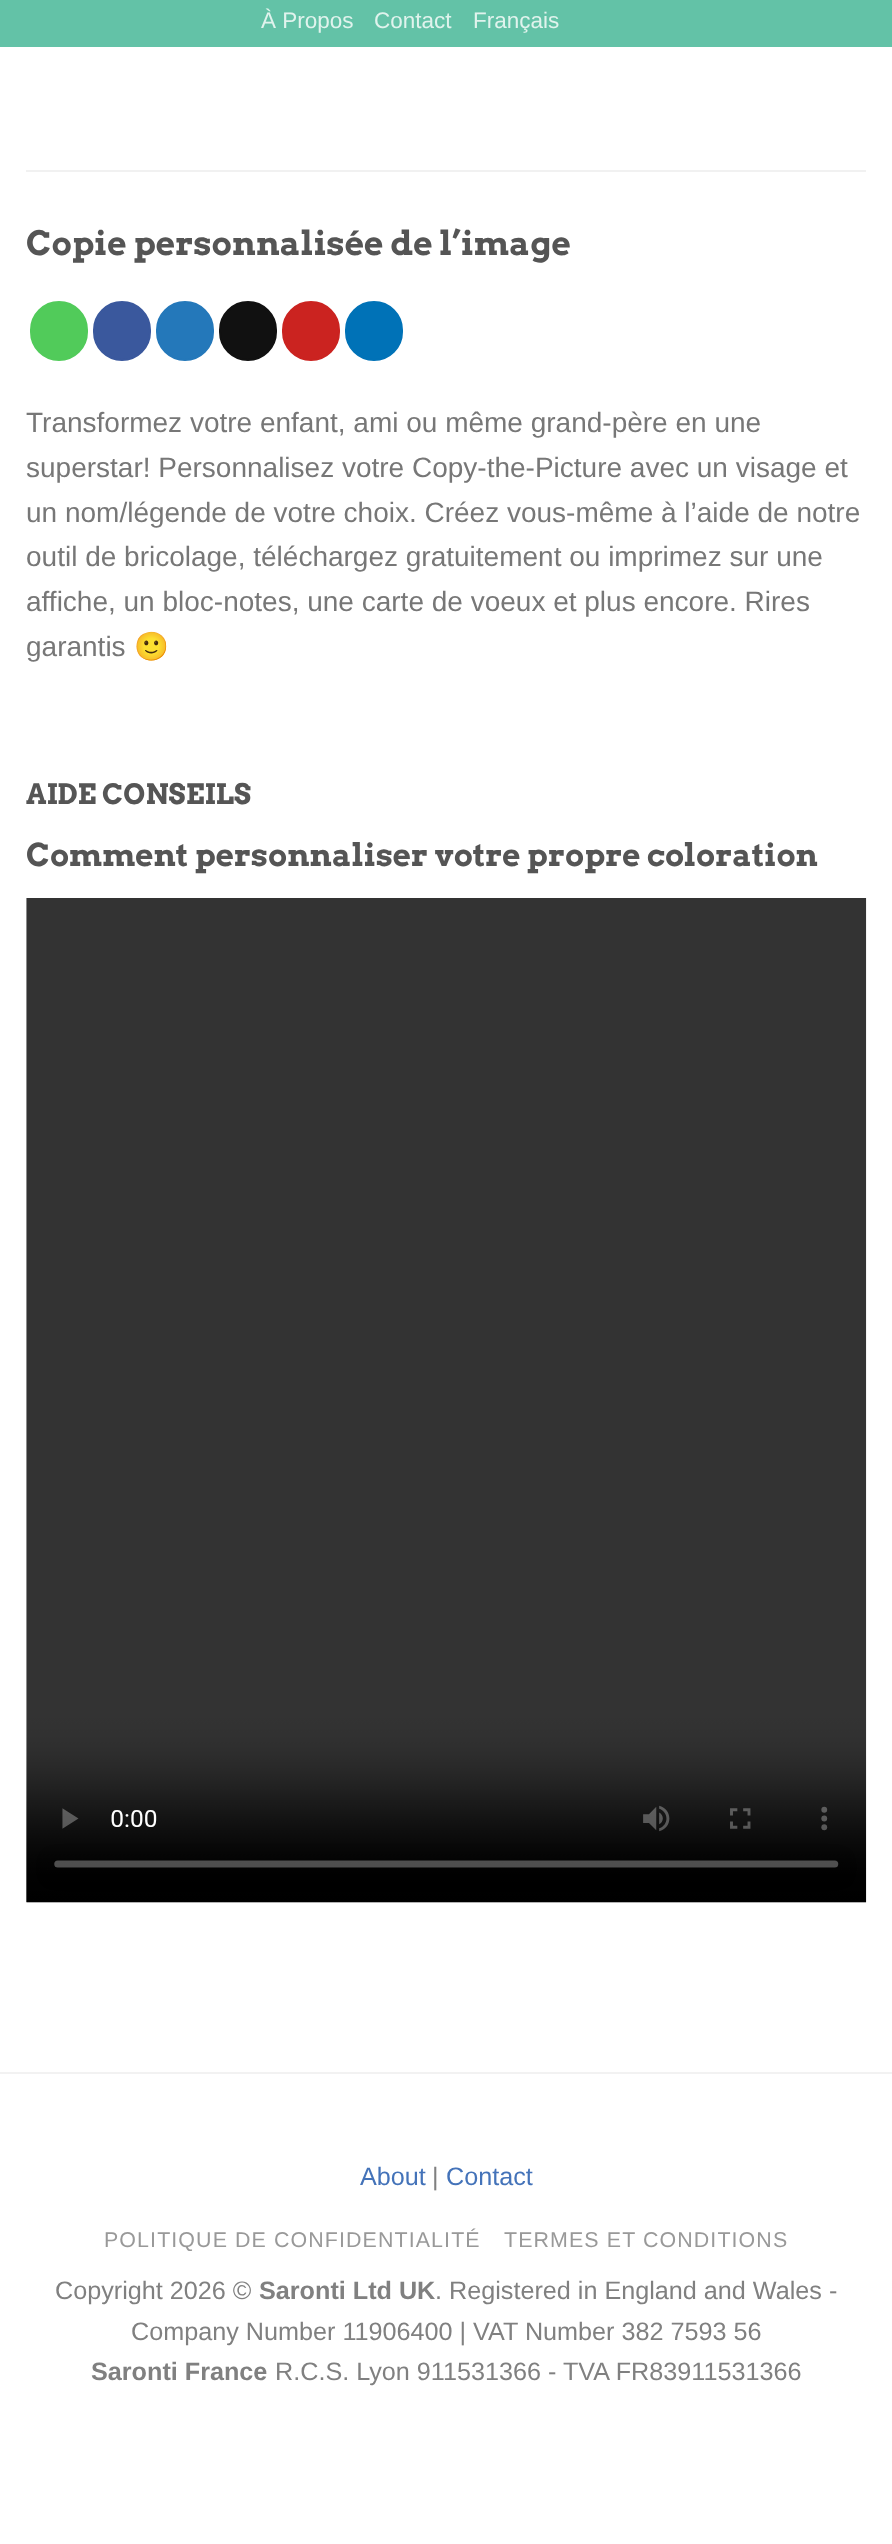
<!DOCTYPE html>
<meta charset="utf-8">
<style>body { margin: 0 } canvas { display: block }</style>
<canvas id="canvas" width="892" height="2544"></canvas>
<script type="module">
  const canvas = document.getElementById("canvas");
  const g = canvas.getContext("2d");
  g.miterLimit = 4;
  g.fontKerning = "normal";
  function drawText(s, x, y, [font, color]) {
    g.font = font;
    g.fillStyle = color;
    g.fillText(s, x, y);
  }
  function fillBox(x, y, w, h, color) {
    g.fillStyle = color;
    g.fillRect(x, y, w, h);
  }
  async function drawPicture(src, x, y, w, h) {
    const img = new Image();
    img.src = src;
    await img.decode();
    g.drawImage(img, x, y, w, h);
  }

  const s1 = ["22.5px Liberation Sans", "#E0F3ED"];
  const s2 = ["bold 33.6px Arvo", "#555555"];
  const s3 = ["28px Liberation Sans", "#777777"];
  const s4 = ["28px Noto Color Emoji", "#777777"];
  const s5 = ["bold 28px Arvo", "#555555"];
  const s6 = ["bold 31.5px Arvo", "#555555"];
  const s7 = ["25.2px Liberation Sans", "#4473B9"];
  const s8 = ["25.2px Liberation Sans", "#808080"];
  const s9 = ["21.4px Liberation Sans", "#999999"];
  const s10 = ["bold 25.2px Liberation Sans", "#808080"];

  fillBox(0, 0, 892, 2544, "#FFFFFF");
  fillBox(0, 0, 892, 47, "#63C2A7");
  drawText("À Propos", 261, 28, s1);
  drawText("Contact", 374, 28, s1);
  drawText("Français", 473, 28, s1);
  fillBox(26, 170, 840, 2, "#F1F1F1");
  drawText("Copie personnalisée de l’image", 26, 255, s2);
  g.fillStyle = "#51CB5A";
  g.beginPath();
  g.roundRect(31, 302, 56, 58, 28);
  g.fill();
  g.strokeStyle = "#51CB5A";
  g.lineWidth = 2;
  g.stroke();
  g.fillStyle = "#3A589D";
  g.beginPath();
  g.roundRect(94, 302, 56, 58, 28);
  g.fill();
  g.strokeStyle = "#3A589D";
  g.stroke();
  g.fillStyle = "#2478BA";
  g.beginPath();
  g.roundRect(157, 302, 56, 58, 28);
  g.fill();
  g.strokeStyle = "#2478BA";
  g.stroke();
  g.fillStyle = "#111111";
  g.beginPath();
  g.roundRect(220, 302, 56, 58, 28);
  g.fill();
  g.strokeStyle = "#111111";
  g.stroke();
  g.fillStyle = "#CB2320";
  g.beginPath();
  g.roundRect(283, 302, 56, 58, 28);
  g.fill();
  g.strokeStyle = "#CB2320";
  g.stroke();
  g.fillStyle = "#0072B7";
  g.beginPath();
  g.roundRect(346, 302, 56, 58, 28);
  g.fill();
  g.strokeStyle = "#0072B7";
  g.stroke();
  drawText("Transformez votre enfant, ami ou même grand-père en une", 26, 432, s3);
  drawText("superstar! Personnalisez votre Copy-the-Picture avec un visage et", 26, 477, s3);
  drawText("un nom/légende de votre choix. Créez vous-même à l’aide de notre", 26, 522, s3);
  drawText("outil de bricolage, téléchargez gratuitement ou imprimez sur une", 26, 566, s3);
  drawText("affiche, un bloc-notes, une carte de voeux et plus encore. Rires", 26, 611, s3);
  drawText("garantis", 26, 656, s3);
  drawText("🙂", 134, 656, s4);
  drawText("AIDE CONSEILS", 26, 804, s5);
  drawText("Comment personnaliser votre propre coloration", 26, 866, s6);
  await drawPicture("pic1.png", 26, 898, 841, 1005);
  fillBox(0, 2072, 892, 2, "#F2F2F2");
  drawText("About", 360, 2185, s7);
  drawText("|", 432, 2185, s8);
  drawText("Contact", 446, 2185, s7);
  g.letterSpacing = "1.1px";
  drawText("POLITIQUE DE CONFIDENTIALITÉ", 104, 2247, s9);
  drawText("TERMES ET CONDITIONS", 504, 2247, s9);
  g.letterSpacing = "0px";
  drawText("Copyright 2026 ©", 55, 2299, s8);
  drawText("Saronti Ltd UK", 259, 2299, s10);
  drawText(". Registered in England and Wales -", 435, 2299, s8);
  drawText("Company Number 11906400 | VAT Number 382 7593 56", 131, 2340, s8);
  drawText("Saronti France", 91, 2380, s10);
  drawText("R.C.S. Lyon 911531366 - TVA FR83911531366", 275, 2380, s8);
</script>
